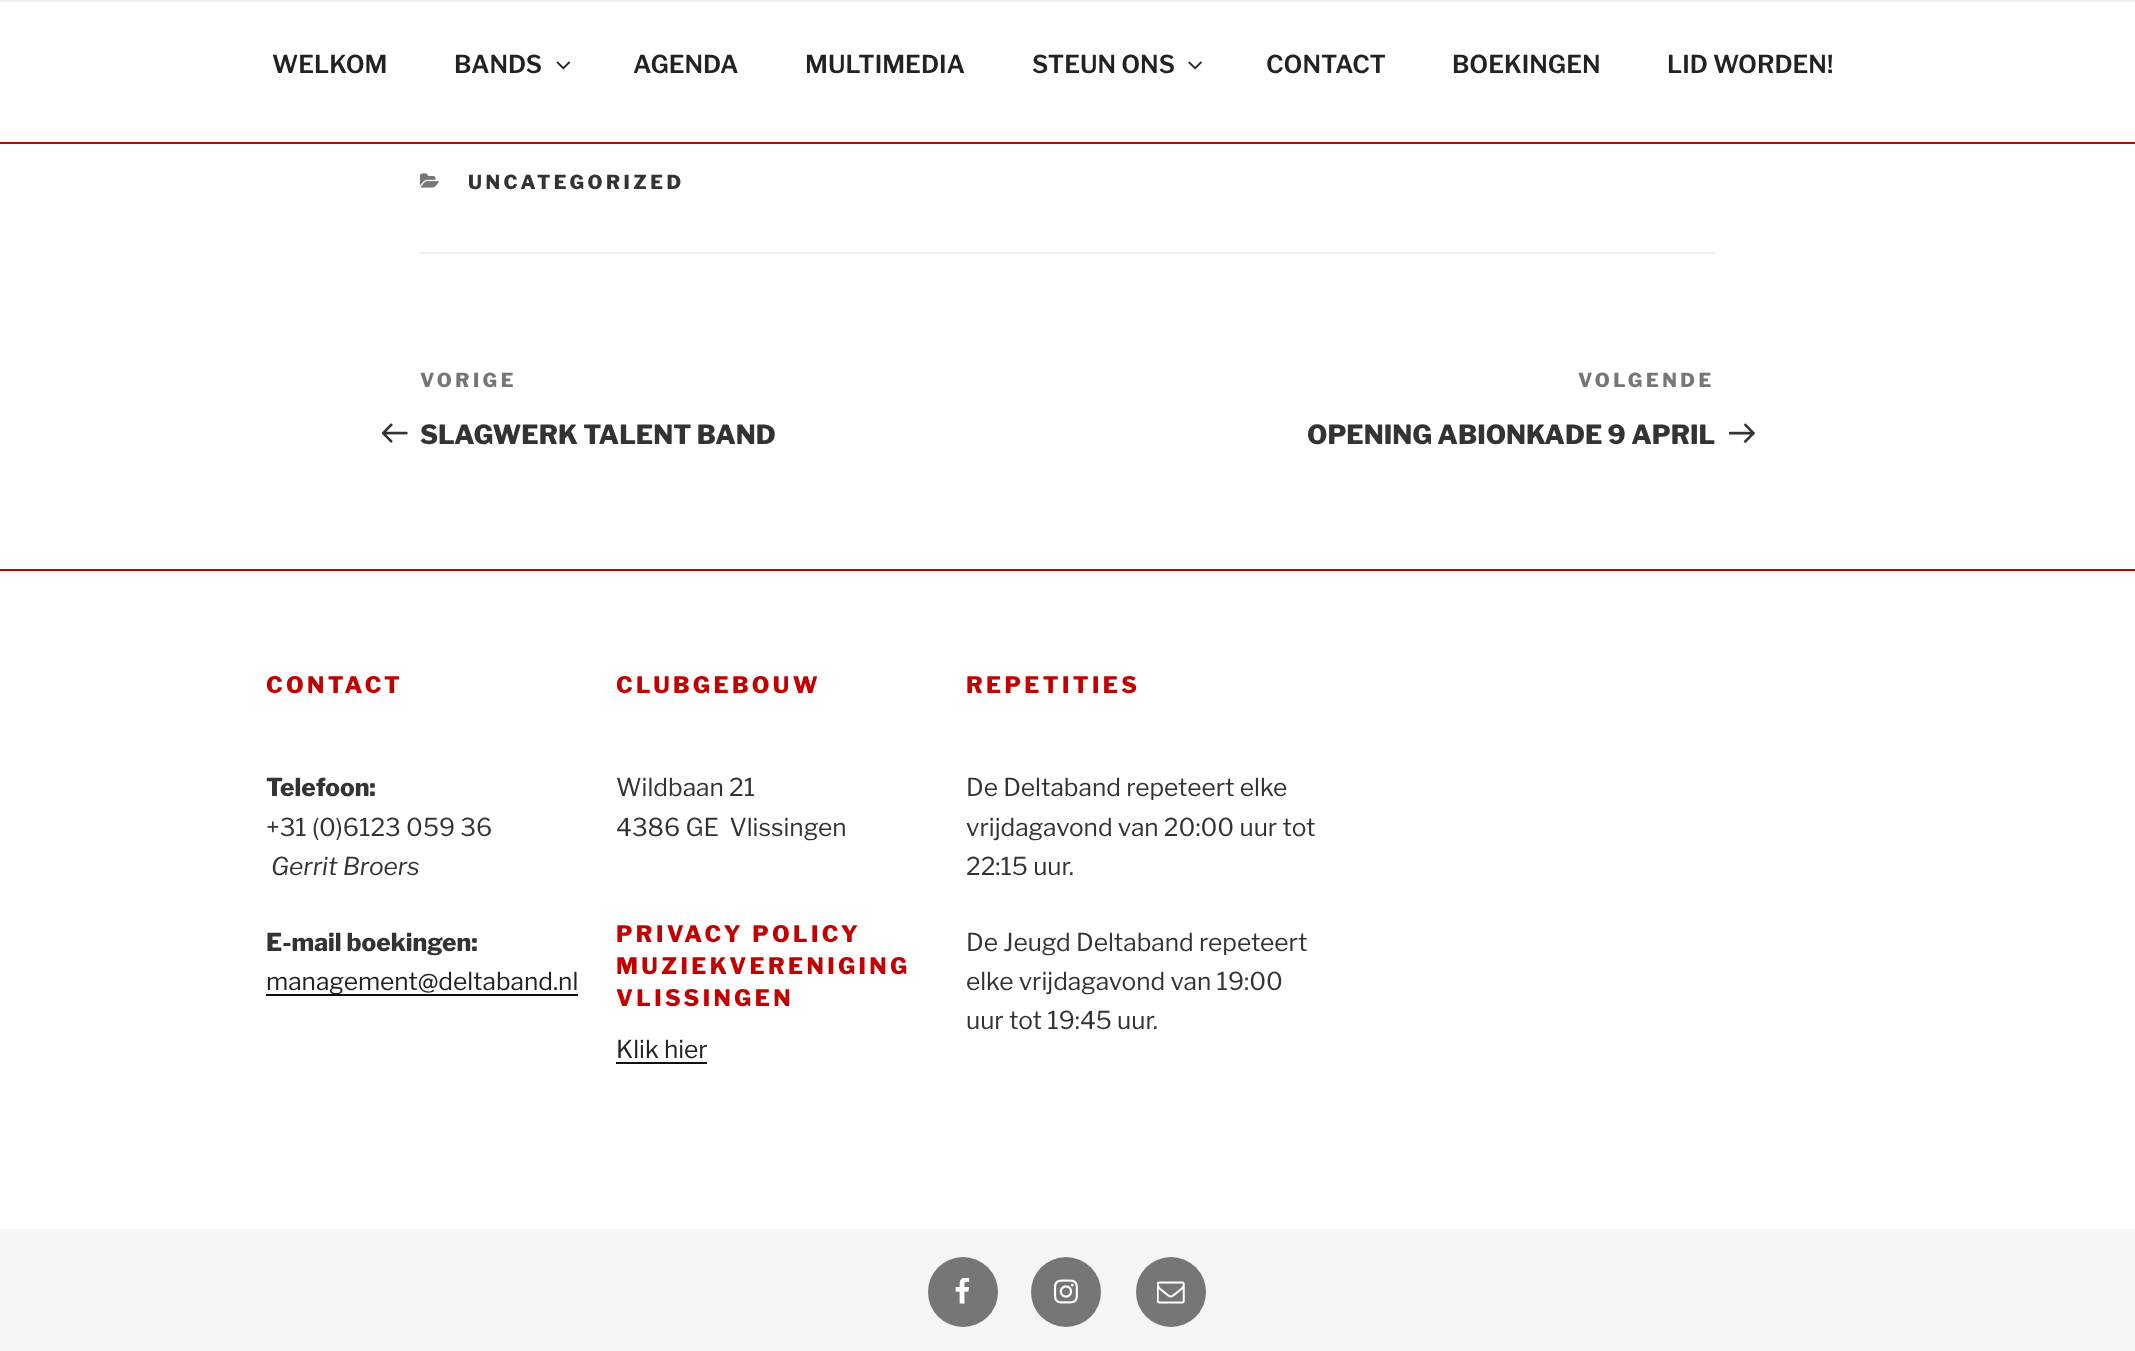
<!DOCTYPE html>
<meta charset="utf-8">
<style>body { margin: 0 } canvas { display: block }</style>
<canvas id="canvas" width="2135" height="1351"></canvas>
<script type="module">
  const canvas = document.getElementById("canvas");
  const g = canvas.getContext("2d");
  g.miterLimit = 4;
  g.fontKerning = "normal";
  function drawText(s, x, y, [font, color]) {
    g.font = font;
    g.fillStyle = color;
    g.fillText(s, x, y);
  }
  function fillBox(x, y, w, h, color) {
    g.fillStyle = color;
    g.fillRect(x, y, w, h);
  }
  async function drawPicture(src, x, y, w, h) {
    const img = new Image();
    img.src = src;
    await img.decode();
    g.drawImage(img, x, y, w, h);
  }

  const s1 = ["600 24.5px Libre Franklin", "#222222"];
  const s2 = ["800 19.25px Libre Franklin", "#333333"];
  const s3 = ["800 19.25px Libre Franklin", "#767676"];
  const s4 = ["800 26.25px Libre Franklin", "#333333"];
  const s5 = ["800 22.75px Libre Franklin", "#C20000"];
  const s6 = ["800 24.5px Libre Franklin", "#333333"];
  const s7 = ["24.5px Libre Franklin", "#333333"];
  const s8 = ["italic 24.5px Libre Franklin", "#333333"];
  const s9 = ["24.5px Libre Franklin", "#222222"];

  fillBox(0, 0, 2135, 1351, "#FFFFFF");
  fillBox(0, 0, 2135, 2, "#EEEEEE");
  fillBox(0, 142, 2135, 2, "#C20000");
  drawText("WELKOM", 272, 73, s1);
  drawText("BANDS", 454, 73, s1);
  await drawPicture("pic1.png", 556, 61, 15, 9);
  drawText("AGENDA", 633, 73, s1);
  drawText("MULTIMEDIA", 805, 73, s1);
  drawText("STEUN ONS", 1032, 73, s1);
  await drawPicture("pic2.png", 1188, 61, 14, 9);
  drawText("CONTACT", 1266, 73, s1);
  drawText("BOEKINGEN", 1452, 73, s1);
  drawText("LID WORDEN!", 1667, 73, s1);
  fillBox(420, 252, 1295, 2, "#EEEEEE");
  await drawPicture("pic3.png", 420, 173, 19, 15);
  g.letterSpacing = "3.5px";
  drawText("UNCATEGORIZED", 468, 189, s2);
  drawText("VORIGE", 420, 387, s3);
  await drawPicture("pic4.png", 382, 423, 26, 20);
  g.letterSpacing = "0px";
  drawText("SLAGWERK TALENT BAND", 420, 444, s4);
  g.letterSpacing = "3.5px";
  drawText("VOLGENDE", 1578, 387, s3);
  g.letterSpacing = "0px";
  drawText("OPENING ABIONKADE 9 APRIL", 1307, 444, s4);
  await drawPicture("pic5.png", 1729, 423, 26, 20);
  fillBox(0, 569, 2135, 2, "#C20000");
  g.letterSpacing = "3.4px";
  drawText("CONTACT", 266, 693, s5);
  g.letterSpacing = "0px";
  drawText("Telefoon:", 266, 796, s6);
  drawText("+31 (0)6123 059 36", 266, 836, s7);
  drawText("Gerrit Broers", 271, 875, s8);
  drawText("E-mail boekingen:", 266, 951, s6);
  fillBox(266, 994, 312, 2, "#0F0F0F");
  drawText("management@deltaband.nl", 266, 990, s9);
  g.letterSpacing = "3.4px";
  drawText("CLUBGEBOUW", 616, 693, s5);
  g.letterSpacing = "0px";
  drawText("Wildbaan 21", 616, 796, s7);
  drawText("4386 GE  Vlissingen", 616, 836, s7);
  g.letterSpacing = "3.4px";
  drawText("PRIVACY POLICY", 616, 942, s5);
  drawText("MUZIEKVERENIGING", 616, 974, s5);
  drawText("VLISSINGEN", 616, 1006, s5);
  g.letterSpacing = "0px";
  drawText("Klik hier", 616, 1058, s9);
  fillBox(616, 1062, 91, 2, "#0F0F0F");
  g.letterSpacing = "3.4px";
  drawText("REPETITIES", 966, 693, s5);
  g.letterSpacing = "0px";
  drawText("De Deltaband repeteert elke", 966, 796, s7);
  drawText("vrijdagavond van 20:00 uur tot", 966, 836, s7);
  drawText("22:15 uur.", 966, 875, s7);
  drawText("De Jeugd Deltaband repeteert", 966, 951, s7);
  drawText("elke vrijdagavond van 19:00", 966, 990, s7);
  drawText("uur tot 19:45 uur.", 966, 1029, s7);
  fillBox(0, 1229, 2135, 122, "#F5F5F5");
  g.fillStyle = "#767676";
  g.beginPath();
  g.arc(963, 1292, 35, 0, Math.PI * 2);
  g.fill();
  await drawPicture("pic6.png", 955, 1278, 15, 26);
  g.beginPath();
  g.arc(1066, 1292, 35, 0, Math.PI * 2);
  g.fill();
  await drawPicture("pic7.png", 1053, 1279, 25, 25);
  g.beginPath();
  g.arc(1171, 1292, 35, 0, Math.PI * 2);
  g.fill();
  await drawPicture("pic8.png", 1157, 1281, 28, 23);
</script>
